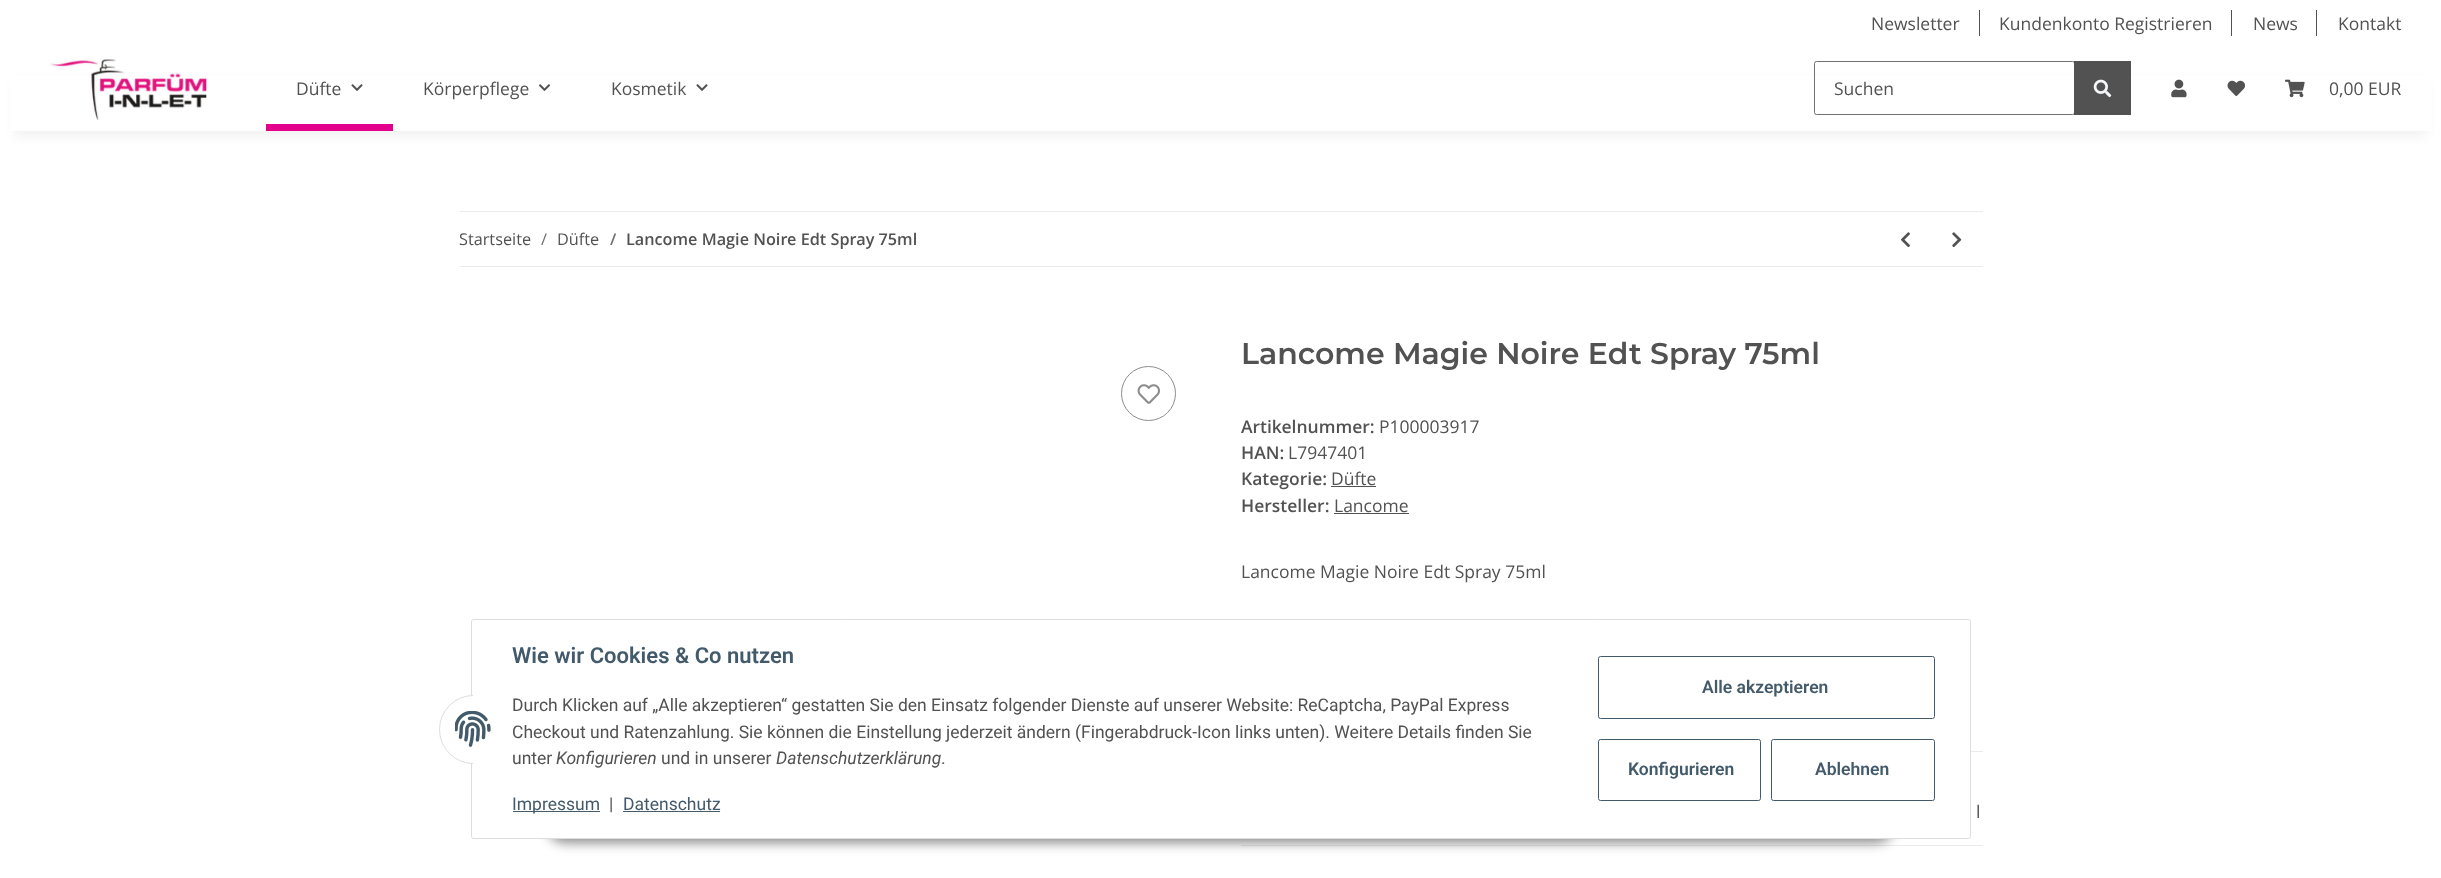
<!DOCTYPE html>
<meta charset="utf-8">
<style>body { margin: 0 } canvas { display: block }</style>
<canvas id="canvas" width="2441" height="878"></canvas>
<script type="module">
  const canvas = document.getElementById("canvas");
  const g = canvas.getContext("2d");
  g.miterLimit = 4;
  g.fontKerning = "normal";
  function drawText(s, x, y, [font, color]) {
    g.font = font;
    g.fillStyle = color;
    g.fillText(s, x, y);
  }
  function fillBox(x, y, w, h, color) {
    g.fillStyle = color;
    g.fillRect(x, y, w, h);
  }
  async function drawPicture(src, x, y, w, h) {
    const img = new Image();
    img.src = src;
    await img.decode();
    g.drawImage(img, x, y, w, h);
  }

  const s1 = ["17.5px Open Sans", "#525252"];
  const s2 = ["16.25px Open Sans", "#525252"];
  const s3 = ["16.25px Open Sans", "#707070"];
  const s4 = ["600 16.25px Open Sans", "#707070"];
  const s5 = ["600 16.25px Open Sans", "#525252"];
  const s6 = ["600 30px Montserrat", "#525252"];
  const s7 = ["600 17.5px Open Sans", "#525252"];
  const s8 = ["600 22px Roboto", "#435A6B"];
  const s9 = ["17.5px Roboto", "#525252"];
  const s10 = ["italic 17.5px Roboto", "#525252"];
  const s11 = ["17.5px Roboto", "#435A6B"];
  const s12 = ["600 17.5px Roboto", "#435A6B"];

  fillBox(0, 0, 2441, 878, "#FFFFFF");
  drawText("Newsletter", 1871, 30, s1);
  fillBox(1979, 10, 1, 26, "#525252");
  drawText("Kundenkonto Registrieren", 1999, 30, s1);
  fillBox(2231, 10, 1, 26, "#525252");
  drawText("News", 2253, 30, s1);
  fillBox(2316, 10, 1, 26, "#525252");
  drawText("Kontakt", 2338, 30, s1);
  g.fillStyle = "rgba(0, 0, 0, 0.06)";
  g.filter = "blur(5.5px)";
  g.beginPath();
  g.rect(15, 81, 2411, 55);
  g.fill();
  g.filter = "none";
  fillBox(10, 76, 2421, 55, "#FFFFFF");
  await drawPicture("pic1.png", 50, 59, 157, 61);
  drawText("Düfte", 296, 95, s1);
  await drawPicture("pic2.png", 351, 84, 12, 7);
  fillBox(266, 124, 127, 7, "#E2008C");
  drawText("Körperpflege", 423, 95, s1);
  await drawPicture("pic3.png", 538, 84, 12, 7);
  drawText("Kosmetik", 611, 95, s1);
  await drawPicture("pic2.png", 696, 84, 12, 7);
  g.beginPath();
  g.roundRect(1814.5, 61.5, 260, 53, 2);
  g.strokeStyle = "#707070";
  g.stroke();
  drawText("Suchen", 1834, 95, s1);
  fillBox(2074, 61, 57, 54, "#525252");
  await drawPicture("pic4.png", 2093, 79, 19, 19);
  await drawPicture("pic5.png", 2171, 79, 16, 19);
  await drawPicture("pic6.png", 2227, 80, 18, 17);
  await drawPicture("pic7.png", 2285, 79, 20, 19);
  drawText("0,00 EUR", 2329, 95, s1);
  fillBox(460, 211, 1523, 1, "#EBEBEB");
  fillBox(460, 266, 1523, 1, "#EBEBEB");
  drawText("Startseite", 459, 245, s2);
  drawText("/", 541, 245, s3);
  drawText("Düfte", 557, 245, s2);
  drawText("/", 610, 245, s4);
  drawText("Lancome Magie Noire Edt Spray 75ml", 626, 245, s5);
  await drawPicture("pic8.png", 1901, 232, 9, 16);
  await drawPicture("pic9.png", 1952, 232, 10, 16);
  g.beginPath();
  g.arc(1148.5, 393.5, 27, 0, Math.PI * 2);
  g.strokeStyle = "#8D8D8D";
  g.stroke();
  await drawPicture("pic10.png", 1137, 384, 23, 20);
  drawText("Lancome Magie Noire Edt Spray 75ml", 1241, 364, s6);
  drawText("Artikelnummer:", 1241, 433, s7);
  drawText("P100003917", 1379, 433, s1);
  drawText("HAN:", 1241, 459, s7);
  drawText("L7947401", 1288, 459, s1);
  drawText("Kategorie:", 1241, 485, s7);
  drawText("Düfte", 1331, 485, s1);
  fillBox(1331, 486, 45, 1, "#525252");
  drawText("Hersteller:", 1241, 512, s7);
  drawText("Lancome", 1334, 512, s1);
  fillBox(1334, 513, 75, 1, "#525252");
  drawText("Lancome Magie Noire Edt Spray 75ml", 1241, 578, s1);
  fillBox(1971, 751, 12, 1, "#EBEBEB");
  fillBox(1241, 845, 742, 1, "#EBEBEB");
  drawText("l", 1976, 818, s1);
  g.fillStyle = "rgba(0, 0, 0, 0.45)";
  g.filter = "blur(6px)";
  g.beginPath();
  g.roundRect(546, 803, 1349, 40, 20);
  g.fill();
  g.filter = "none";
  g.fillStyle = "#FFFFFF";
  g.beginPath();
  g.roundRect(471.5, 619.5, 1499, 219, 2);
  g.fill();
  g.strokeStyle = "#DDDDDD";
  g.stroke();
  g.beginPath();
  g.arc(473.5, 729.5, 34, 0, Math.PI * 2);
  g.fill();
  g.stroke();
  fillBox(473, 695, 35, 69, "#FFFFFF");
  await drawPicture("pic11.png", 455, 711, 36, 36);
  drawText("Wie wir Cookies & Co nutzen", 512, 663, s8);
  drawText("Durch Klicken auf „Alle akzeptieren“ gestatten Sie den Einsatz folgender Dienste auf unserer Website: ReCaptcha, PayPal Express", 512, 711, s9);
  drawText("Checkout und Ratenzahlung. Sie können die Einstellung jederzeit ändern (Fingerabdruck-Icon links unten). Weitere Details finden Sie", 512, 738, s9);
  drawText("unter", 512, 764, s9);
  drawText("Konfigurieren", 556, 764, s10);
  drawText("und in unserer", 661, 764, s9);
  drawText("Datenschutzerklärung", 776, 764, s10);
  drawText(".", 941, 764, s9);
  fillBox(513, 811, 87, 1, "#435A6B");
  drawText("Impressum", 512, 810, s11);
  drawText("|", 609, 810, s9);
  drawText("Datenschutz", 623, 810, s11);
  fillBox(623, 811, 97, 1, "#435A6B");
  g.beginPath();
  g.roundRect(1598.5, 656.5, 336, 62, 2);
  g.strokeStyle = "#435A6B";
  g.stroke();
  drawText("Alle akzeptieren", 1702, 693, s12);
  g.beginPath();
  g.roundRect(1598.5, 739.5, 162, 61, 2);
  g.stroke();
  drawText("Konfigurieren", 1628, 775, s12);
  g.beginPath();
  g.roundRect(1771.5, 739.5, 163, 61, 2);
  g.stroke();
  drawText("Ablehnen", 1815, 775, s12);
</script>
